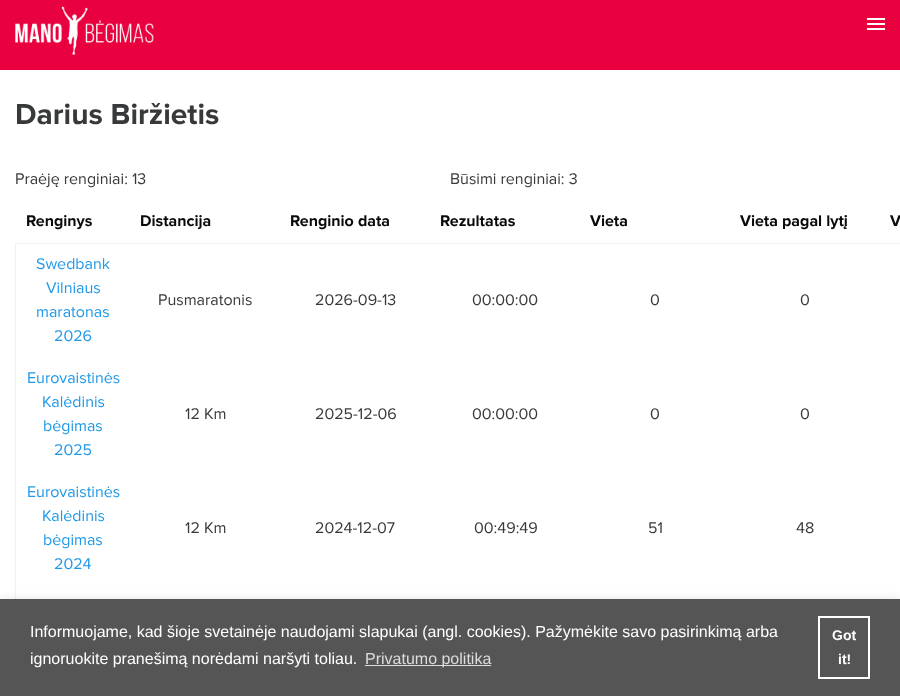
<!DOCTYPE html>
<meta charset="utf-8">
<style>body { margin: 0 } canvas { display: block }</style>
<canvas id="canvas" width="900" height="696"></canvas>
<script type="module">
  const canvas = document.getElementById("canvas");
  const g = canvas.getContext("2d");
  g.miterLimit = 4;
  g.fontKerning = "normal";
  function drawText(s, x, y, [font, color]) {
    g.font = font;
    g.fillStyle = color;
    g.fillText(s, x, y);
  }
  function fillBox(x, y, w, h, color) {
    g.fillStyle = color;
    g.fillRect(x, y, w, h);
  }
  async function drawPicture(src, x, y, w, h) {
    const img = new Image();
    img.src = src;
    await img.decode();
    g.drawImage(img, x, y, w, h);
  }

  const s1 = ["bold 30px Proxima Nova", "#37393B"];
  const s2 = ["16px Proxima Nova", "#37393B"];
  const s3 = ["bold 16px Proxima Nova", "#0A0A0A"];
  const s4 = ["16px Proxima Nova", "#2199E8"];
  const s5 = ["16px Liberation Sans", "#FFFFFF"];
  const s6 = ["16px Liberation Sans", "#DDDDDD"];
  const s7 = ["bold 14px Liberation Sans", "#FFFFFF"];

  fillBox(0, 0, 900, 696, "#FFFFFF");
  fillBox(0, 0, 900, 70, "#E9003E");
  await drawPicture("pic1.png", 15, 6, 139, 49);
  fillBox(867, 23, 18, 2, "#FFFFFF");
  fillBox(867, 18, 18, 2, "#FFFFFF");
  fillBox(867, 28, 18, 2, "#FFFFFF");
  drawText("Darius Biržietis", 15, 124, s1);
  drawText("Praėję renginiai: 13", 15, 184, s2);
  drawText("Būsimi renginiai: 3", 450, 184, s2);
  drawText("Renginys", 26, 226, s3);
  drawText("Distancija", 140, 226, s3);
  drawText("Renginio data", 290, 226, s3);
  drawText("Rezultatas", 440, 226, s3);
  drawText("Vieta", 590, 226, s3);
  drawText("Vieta pagal lytį", 740, 226, s3);
  drawText("V", 890, 226, s3);
  fillBox(15, 243, 885, 1, "#F1F1F1");
  fillBox(15, 243, 1, 356, "#F1F1F1");
  drawText("Swedbank", 36, 269, s4);
  drawText("Vilniaus", 46, 293, s4);
  drawText("maratonas", 36, 317, s4);
  drawText("2026", 54, 341, s4);
  drawText("Pusmaratonis", 158, 305, s2);
  drawText("2026-09-13", 315, 305, s2);
  drawText("00:00:00", 472, 305, s2);
  drawText("0", 650, 305, s2);
  drawText("0", 800, 305, s2);
  drawText("Eurovaistinės", 27, 383, s4);
  drawText("Kalėdinis", 42, 407, s4);
  drawText("bėgimas", 43, 431, s4);
  drawText("2025", 54, 455, s4);
  drawText("12 Km", 185, 419, s2);
  drawText("2025-12-06", 315, 419, s2);
  drawText("00:00:00", 472, 419, s2);
  drawText("0", 650, 419, s2);
  drawText("0", 800, 419, s2);
  drawText("Eurovaistinės", 27, 497, s4);
  drawText("Kalėdinis", 42, 521, s4);
  drawText("bėgimas", 43, 545, s4);
  drawText("2024", 54, 569, s4);
  drawText("12 Km", 185, 533, s2);
  drawText("2024-12-07", 315, 533, s2);
  drawText("00:49:49", 474, 533, s2);
  drawText("51", 648, 533, s2);
  drawText("48", 796, 533, s2);
  g.fillStyle = "rgba(0, 0, 0, 0.1)";
  g.filter = "blur(5px)";
  g.beginPath();
  g.rect(0, 599, 900, 97);
  g.fill();
  g.filter = "none";
  fillBox(0, 599, 900, 97, "#555555");
  drawText("Informuojame, kad šioje svetainėje naudojami slapukai (angl. cookies). Pažymėkite savo pasirinkimą arba", 30, 637, s5);
  drawText("ignoruokite pranešimą norėdami naršyti toliau.", 30, 664, s5);
  fillBox(365, 665, 126, 1, "#DDDDDD");
  drawText("Privatumo politika", 365, 664, s6);
  g.strokeStyle = "#FFFFFF";
  g.lineWidth = 2;
  g.strokeRect(819, 617, 50, 61);
  drawText("Got", 832, 640, s7);
  drawText("it!", 838, 664, s7);
</script>
